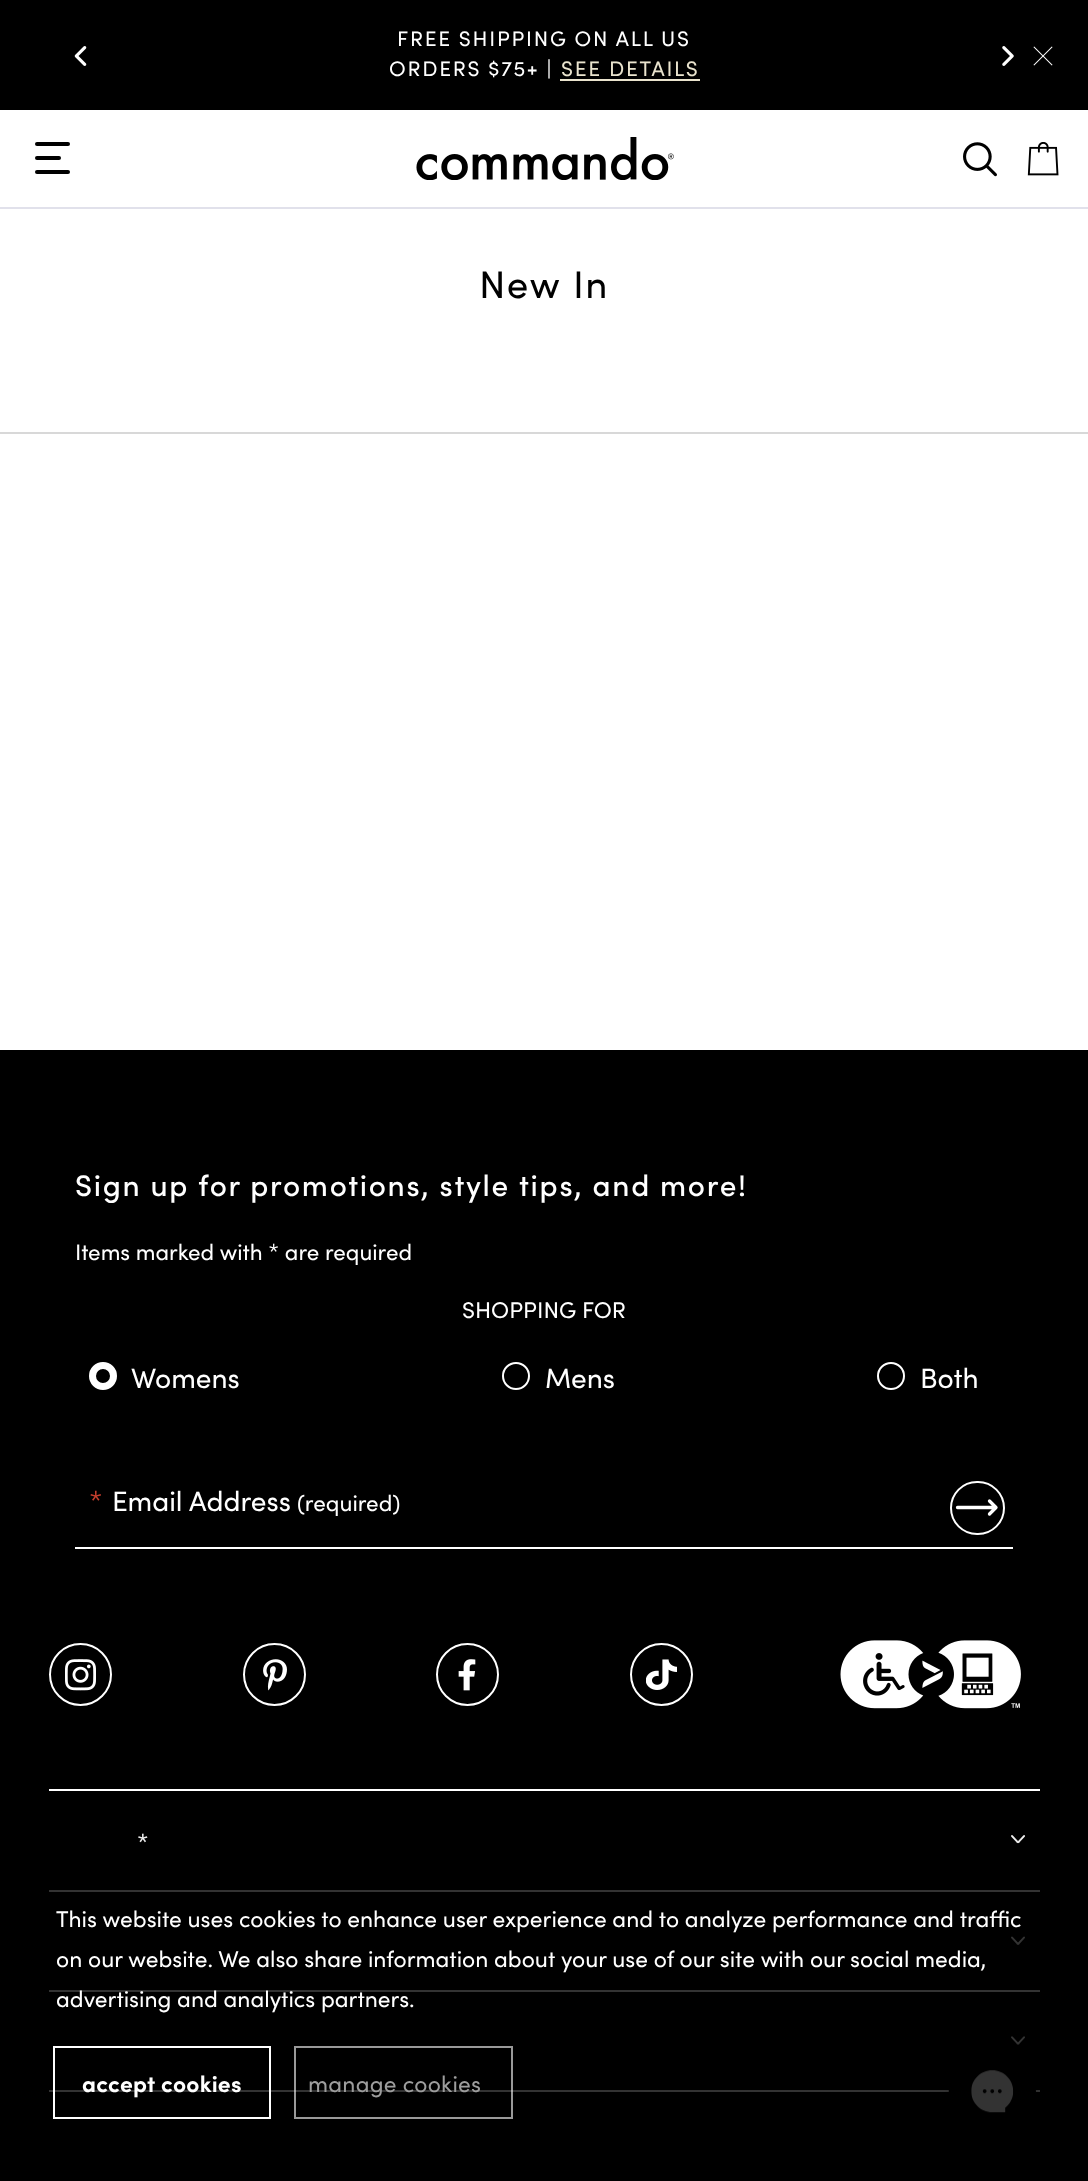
<!DOCTYPE html>
<meta charset="utf-8">
<style>body { margin: 0 } canvas { display: block }</style>
<canvas id="canvas" width="1088" height="2181"></canvas>
<script type="module">
  const canvas = document.getElementById("canvas");
  const g = canvas.getContext("2d");
  g.miterLimit = 4;
  g.fontKerning = "normal";
  function drawText(s, x, y, [font, color]) {
    g.font = font;
    g.fillStyle = color;
    g.fillText(s, x, y);
  }
  function fillBox(x, y, w, h, color) {
    g.fillStyle = color;
    g.fillRect(x, y, w, h);
  }
  function fillRounded(x, y, w, h, r, color) {
    g.fillStyle = color;
    g.beginPath();
    g.roundRect(x, y, w, h, r);
    g.fill();
  }
  async function drawPicture(src, x, y, w, h) {
    const img = new Image();
    img.src = src;
    await img.decode();
    g.drawImage(img, x, y, w, h);
  }

  const s1 = ["21px Sofia", "#FFFFFF"];
  const s2 = ["21px Sofia", "#EAE4CE"];
  const s3 = ["38.5px Sofia", "#000000"];
  const s4 = ["500 29.75px Sofia", "#FFFFFF"];
  const s5 = ["22.4px Sofia", "#FFFFFF"];
  const s6 = ["22.75px Sofia", "#FFFFFF"];
  const s7 = ["28px Sofia", "#FFFFFF"];
  const s8 = ["28px Sofia", "#C53E2D"];
  const s9 = ["22.5px Sofia", "#FFFFFF"];
  const s10 = ["500 24px Sofia", "#FFFFFF"];
  const s11 = ["bold 22.75px Sofia", "#FFFFFF"];
  const s12 = ["22.75px Sofia", "#9D9D9D"];

  fillBox(0, 0, 1088, 2181, "#FFFFFF");
  fillBox(0, 0, 1088, 110, "#000000");
  await drawPicture("pic1.png", 74, 46, 13, 20);
  g.letterSpacing = "1.75px";
  drawText("FREE SHIPPING ON ALL US", 397, 46, s1);
  drawText("ORDERS $75+ |", 389, 76, s1);
  drawText("SEE DETAILS", 561, 76, s2);
  fillBox(560, 79, 140, 2, "#EAE4CE");
  await drawPicture("pic2.png", 1002, 46, 12, 20);
  await drawPicture("pic3.png", 1033, 46, 20, 20);
  fillBox(0, 207, 1088, 2, "#E1E1EB");
  fillRounded(35, 170, 35, 4, 2, "#000000");
  fillRounded(35, 142, 35, 4, 2, "#000000");
  fillRounded(35, 156, 26, 4, 2, "#000000");
  await drawPicture("pic4.png", 416, 137, 258, 43);
  await drawPicture("pic5.png", 963, 142, 34, 35);
  await drawPicture("pic6.png", 1027, 142, 32, 34);
  g.letterSpacing = "1.7px";
  drawText("New In", 479, 298, s3);
  fillBox(0, 432, 1088, 2, "#D8D8D8");
  fillBox(0, 1050, 1088, 1131, "#000000");
  drawText("Sign up for promotions, style tips, and more!", 75, 1196, s4);
  g.letterSpacing = "0px";
  drawText("Items marked with * are required", 75, 1260, s5);
  drawText("SHOPPING FOR", 462, 1318, s6);
  g.beginPath();
  g.arc(103, 1376, 10.5, 0, Math.PI * 2);
  g.strokeStyle = "#FFFFFF";
  g.lineWidth = 7;
  g.stroke();
  drawText("Womens", 131, 1388, s7);
  g.beginPath();
  g.arc(516, 1376, 13, 0, Math.PI * 2);
  g.lineWidth = 2;
  g.stroke();
  drawText("Mens", 545, 1388, s7);
  g.beginPath();
  g.arc(891, 1376, 13, 0, Math.PI * 2);
  g.stroke();
  drawText("Both", 920, 1388, s7);
  drawText("*", 89, 1511, s8);
  drawText("Email Address", 112, 1511, s7);
  drawText("(required)", 297, 1511, s9);
  g.beginPath();
  g.roundRect(951, 1482, 53, 52, 26);
  g.stroke();
  g.beginPath();
  g.moveTo(957.5, 1507.5);
  g.lineTo(996, 1507.5);
  g.moveTo(996, 1507.5);
  g.lineTo(989.5, 1501);
  g.moveTo(996, 1507.5);
  g.lineTo(989.5, 1514);
  g.lineWidth = 3.3;
  g.lineCap = "round";
  g.stroke();
  fillBox(75, 1547, 938, 2, "#FFFFFF");
  g.beginPath();
  g.arc(80.5, 1674.5, 30.5, 0, Math.PI * 2);
  g.lineWidth = 2;
  g.stroke();
  await drawPicture("pic7.png", 65, 1659, 31, 32);
  g.beginPath();
  g.arc(274.5, 1674.5, 30.5, 0, Math.PI * 2);
  g.stroke();
  await drawPicture("pic8.png", 263, 1659, 24, 32);
  g.beginPath();
  g.arc(467.5, 1674.5, 30.5, 0, Math.PI * 2);
  g.stroke();
  await drawPicture("pic9.png", 458, 1659, 18, 32);
  g.beginPath();
  g.arc(661.5, 1674.5, 30.5, 0, Math.PI * 2);
  g.stroke();
  await drawPicture("pic10.png", 646, 1659, 31, 31);
  await drawPicture("pic11.png", 840, 1640, 181, 69);
  fillBox(49, 1789, 991, 2, "#FFFFFF");
  drawText("*", 137, 1851, s10);
  await drawPicture("pic12.png", 1011, 1835, 14, 9);
  fillBox(49, 1890, 991, 2, "#FFFFFF");
  await drawPicture("pic13.png", 1011, 1936, 14, 9);
  fillBox(49, 1990, 991, 2, "#FFFFFF");
  fillBox(49, 2090, 991, 2, "#FFFFFF");
  await drawPicture("pic14.png", 1011, 2036, 14, 9);
  await drawPicture("pic15.png", 945, 2070, 95, 43);
  g.save();
  g.beginPath();
  g.rect(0, 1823, 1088, 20);
  g.clip();
  g.fillStyle = "rgba(0, 0, 0, 0.2)";
  g.filter = "blur(16px)";
  g.beginPath();
  g.rect(0, 1843, 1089, 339);
  g.fill();
  g.filter = "none";
  g.restore();
  fillBox(49, 1843, 991, 270, "rgba(0, 0, 0, 0.8)");
  drawText("This website uses cookies to enhance user experience and to analyze performance and traffic", 56, 1927, s6);
  drawText("on our website. We also share information about your use of our site with our social media,", 56, 1967, s6);
  drawText("advertising and analytics partners.", 56, 2007, s6);
  g.strokeRect(54, 2047, 216, 71);
  g.letterSpacing = "0.25px";
  drawText("accept cookies", 82, 2092, s11);
  g.strokeStyle = "rgba(255, 255, 255, 0.6)";
  g.strokeRect(295, 2047, 217, 71);
  drawText("manage cookies", 308, 2092, s12);
</script>
